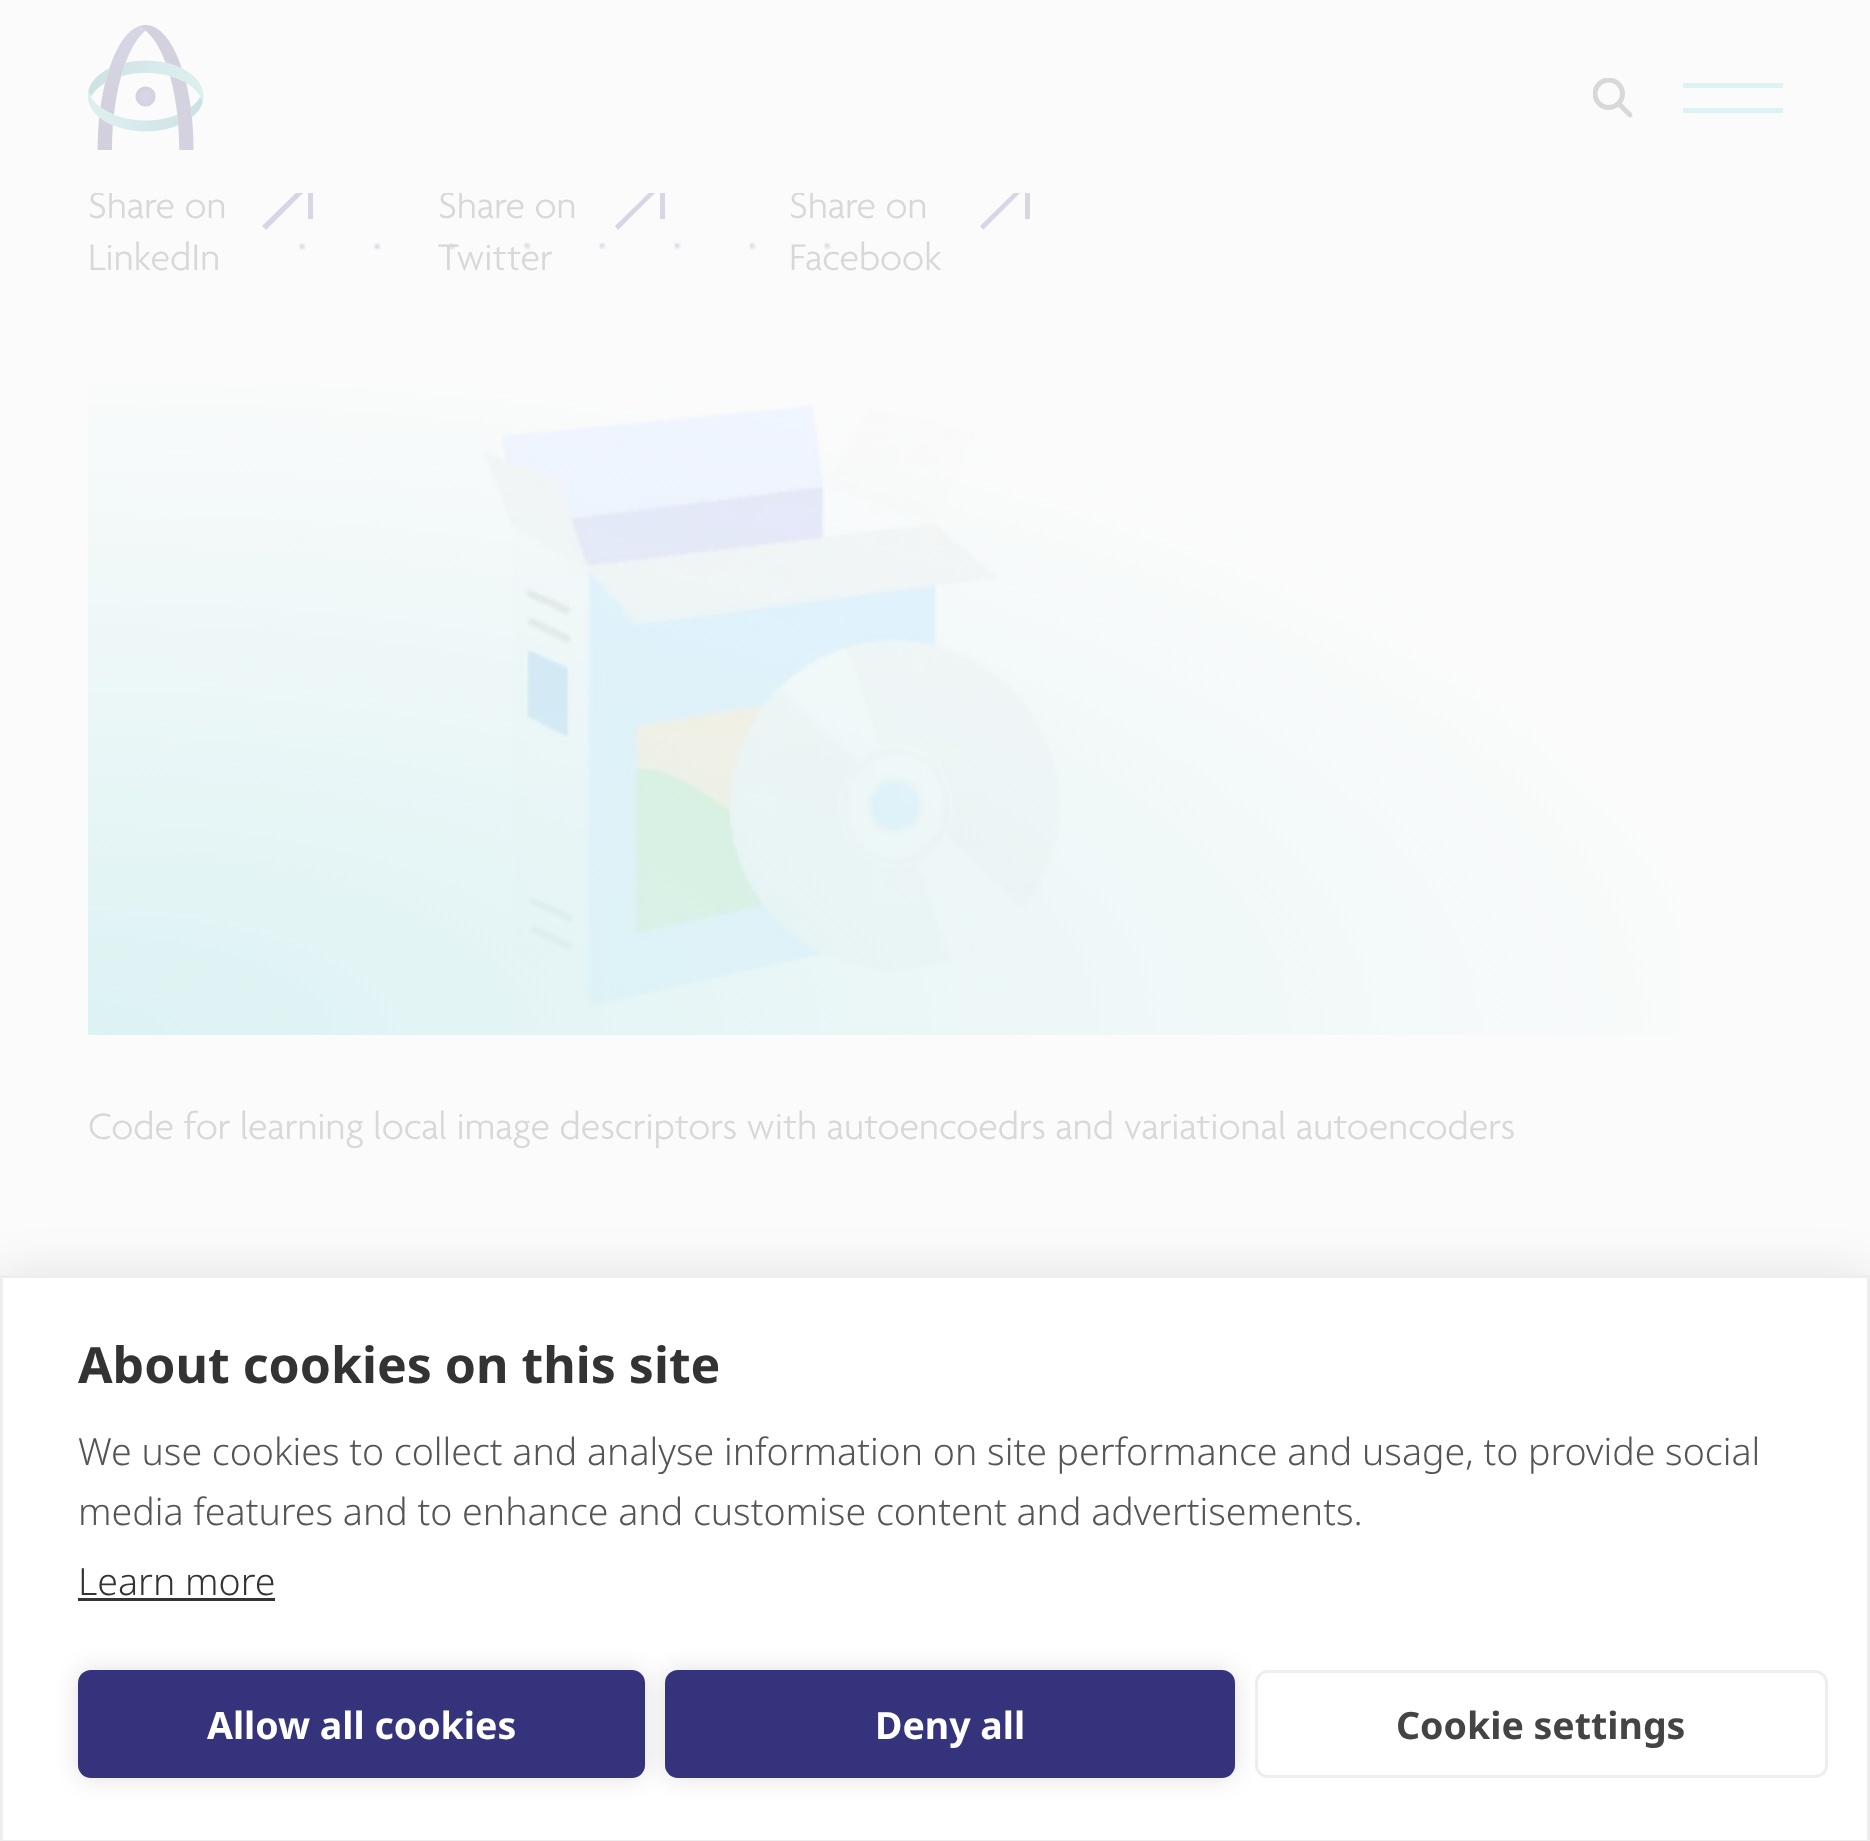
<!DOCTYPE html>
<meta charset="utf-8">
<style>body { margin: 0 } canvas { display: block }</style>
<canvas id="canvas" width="1870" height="1841"></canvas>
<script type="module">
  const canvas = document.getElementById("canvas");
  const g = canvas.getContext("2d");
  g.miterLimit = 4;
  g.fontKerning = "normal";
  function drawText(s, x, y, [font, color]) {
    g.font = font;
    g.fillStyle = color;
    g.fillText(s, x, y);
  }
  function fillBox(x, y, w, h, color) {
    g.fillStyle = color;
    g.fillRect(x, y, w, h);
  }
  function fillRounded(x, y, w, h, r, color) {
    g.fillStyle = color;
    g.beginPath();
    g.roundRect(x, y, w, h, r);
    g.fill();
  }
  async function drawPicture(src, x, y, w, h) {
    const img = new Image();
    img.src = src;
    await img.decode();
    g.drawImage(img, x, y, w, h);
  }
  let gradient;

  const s1 = ["300 40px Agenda", "#D8D8D8"];
  const s2 = ["bold 50px Noto Sans", "#333333"];
  const s3 = ["300 37.5px Noto Sans", "#555555"];
  const s4 = ["300 37.5px Noto Sans", "#333333"];
  const s5 = ["bold 37.5px Noto Sans", "#FFFFFF"];
  const s6 = ["bold 37.5px Noto Sans", "#444444"];

  fillBox(0, 0, 1870, 1841, "#FBFBFB");
  drawText("Share on", 88, 218, s1);
  g.fillStyle = "#D7D6E5";
  g.beginPath();
  g.moveTo(308, 180);
  g.lineTo(273, 180);
  g.lineTo(273, 185);
  g.lineTo(304, 185);
  g.lineTo(262, 226);
  g.lineTo(266, 230);
  g.lineTo(308, 188);
  g.lineTo(308, 219);
  g.lineTo(313, 219);
  g.lineTo(313, 180);
  g.closePath();
  g.fill();
  drawText("Share on", 438, 218, s1);
  g.fillStyle = "#D7D6E5";
  g.beginPath();
  g.moveTo(660, 180);
  g.lineTo(626, 180);
  g.lineTo(626, 185);
  g.lineTo(657, 185);
  g.lineTo(615, 226);
  g.lineTo(618, 230);
  g.lineTo(660, 188);
  g.lineTo(660, 219);
  g.lineTo(665, 219);
  g.lineTo(665, 180);
  g.closePath();
  g.fill();
  drawText("Share on", 789, 218, s1);
  g.fillStyle = "#D7D6E5";
  g.beginPath();
  g.moveTo(1025, 180);
  g.lineTo(991, 180);
  g.lineTo(991, 185);
  g.lineTo(1022, 185);
  g.lineTo(980, 226);
  g.lineTo(983, 230);
  g.lineTo(1025, 188);
  g.lineTo(1025, 219);
  g.lineTo(1030, 219);
  g.lineTo(1030, 180);
  g.closePath();
  g.fill();
  fillBox(94, 180, 936, 13, "#FBFBFB");
  await drawPicture("pic1.png", 88, 25, 116, 125);
  await drawPicture("pic2.png", 1593, 78, 40, 40);
  fillBox(1683, 83, 100, 5, "#DCF2F3");
  fillBox(1683, 108, 100, 5, "#DCF2F3");
  drawText("LinkedIn", 88, 270, s1);
  drawText("Twitter", 438, 270, s1);
  drawText("Facebook", 789, 270, s1);
  await drawPicture("pic3.png", 297, 240, 534, 10);
  await drawPicture("pic4.png", 484, 400, 577, 608);
  gradient = g.createRadialGradient(88, 2548.65, 0, 88, 2548.65, 2263);
  gradient.addColorStop(0, "#DCF2F3");
  gradient.addColorStop(0.75, "rgba(220, 242, 243, 0)");
  g.fillStyle = gradient;
  g.beginPath();
  g.rect(88, 386, 1593, 649);
  g.save();
  g.clip();
  g.scale(1, 919 / 2263);
  g.fillRect(0, 0, 1870, 4534);
  g.restore();
  drawText("Code for learning local image descriptors with autoencoedrs and variational autoencoders", 88, 1139, s1);
  g.fillStyle = "rgba(0, 0, 0, 0.1)";
  g.filter = "blur(25px)";
  g.beginPath();
  g.rect(0, 1275, 1870, 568);
  g.fill();
  g.filter = "none";
  g.fillStyle = "#FFFFFF";
  g.beginPath();
  g.rect(1.5, 1276.5, 1867, 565);
  g.fill();
  g.strokeStyle = "#EEEEEE";
  g.lineWidth = 3;
  g.stroke();
  drawText("About cookies on this site", 78, 1383, s2);
  drawText("We use cookies to collect and analyse information on site performance and usage, to provide social", 78, 1465, s3);
  drawText("media features and to enhance and customise content and advertisements.", 78, 1525, s3);
  drawText("Learn more", 78, 1595, s4);
  fillBox(78, 1598, 197, 3, "#333333");
  g.fillStyle = "rgba(0, 0, 0, 0.12)";
  g.filter = "blur(12.5px)";
  g.beginPath();
  g.roundRect(78, 1670, 567, 108, 13);
  g.fill();
  g.filter = "none";
  fillRounded(78, 1670, 567, 108, 13, "#36337D");
  drawText("Allow all cookies", 207, 1739, s5);
  g.fillStyle = "rgba(0, 0, 0, 0.12)";
  g.filter = "blur(12.5px)";
  g.beginPath();
  g.roundRect(665, 1670, 570, 108, 13);
  g.fill();
  g.filter = "none";
  fillRounded(665, 1670, 570, 108, 13, "#36337D");
  drawText("Deny all", 875, 1739, s5);
  g.beginPath();
  g.roundRect(1256.5, 1671.5, 570, 105, 11.5);
  g.stroke();
  drawText("Cookie settings", 1396, 1739, s6);
</script>
